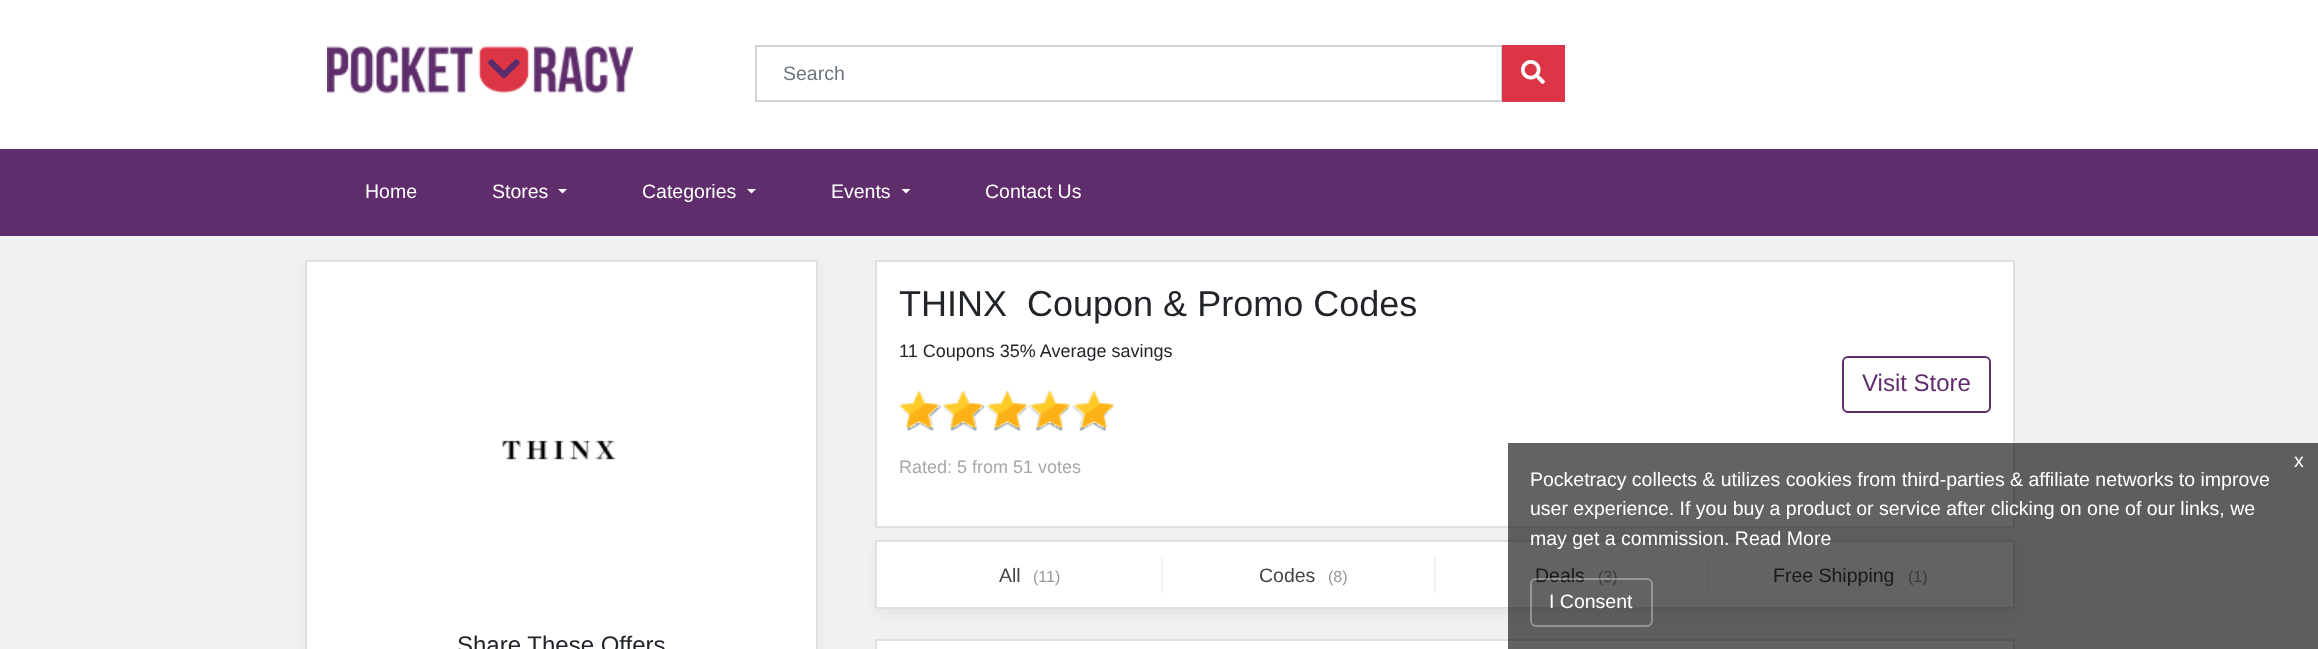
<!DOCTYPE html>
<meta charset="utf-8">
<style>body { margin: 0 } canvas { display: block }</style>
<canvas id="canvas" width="2318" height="649"></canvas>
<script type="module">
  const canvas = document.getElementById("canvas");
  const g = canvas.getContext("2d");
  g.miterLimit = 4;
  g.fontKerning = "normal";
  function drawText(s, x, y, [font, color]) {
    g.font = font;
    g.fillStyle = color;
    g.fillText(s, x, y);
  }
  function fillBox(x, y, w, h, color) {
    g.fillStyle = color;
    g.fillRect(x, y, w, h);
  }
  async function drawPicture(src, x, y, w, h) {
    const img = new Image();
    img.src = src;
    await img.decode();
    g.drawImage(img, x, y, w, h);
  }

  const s1 = ["19.5px Liberation Sans", "#6C757D"];
  const s2 = ["19.5px Liberation Sans", "#FFFFFF"];
  const s3 = ["36px Liberation Sans", "#212529"];
  const s4 = ["18px Liberation Sans", "#212529"];
  const s5 = ["18px Liberation Sans", "#A7A7A7"];
  const s6 = ["24px Liberation Sans", "#602D6C"];
  const s7 = ["19.5px Liberation Sans", "#444444"];
  const s8 = ["16px Liberation Sans", "#989898"];
  const s9 = ["24px Liberation Sans", "#212529"];

  fillBox(0, 0, 2318, 649, "#F1F1F1");
  fillBox(0, 0, 2318, 149, "#FFFFFF");
  await drawPicture("pic1.png", 327, 46, 306, 48);
  g.strokeStyle = "#CED4DA";
  g.lineWidth = 2;
  g.strokeRect(756, 46, 746, 55);
  drawText("Search", 783, 80, s1);
  fillBox(1502, 45, 63, 57, "#DC3545");
  await drawPicture("pic2.png", 1521, 60, 24, 24);
  fillBox(0, 149, 2318, 87, "#602D6C");
  drawText("Home", 365, 198, s2);
  drawText("Stores", 492, 198, s2);
  g.beginPath();
  g.moveTo(558, 189);
  g.lineTo(567, 189);
  g.lineTo(562.5, 193.5);
  g.closePath();
  g.fill();
  drawText("Categories", 642, 198, s2);
  g.beginPath();
  g.moveTo(747, 189);
  g.lineTo(756, 189);
  g.lineTo(751.5, 193.5);
  g.closePath();
  g.fill();
  drawText("Events", 831, 198, s2);
  g.beginPath();
  g.moveTo(901.5, 189);
  g.lineTo(910.5, 189);
  g.lineTo(906, 193.5);
  g.closePath();
  g.fill();
  drawText("Contact Us", 985, 198, s2);
  g.fillStyle = "rgba(0, 0, 0, 0.05)";
  g.filter = "blur(6px)";
  g.beginPath();
  g.rect(875, 545, 1140, 69);
  g.fill();
  g.filter = "none";
  g.fillStyle = "#FFFFFF";
  g.beginPath();
  g.rect(876, 261, 1138, 266);
  g.fill();
  g.strokeStyle = "#E0E0E0";
  g.stroke();
  drawText("THINX  Coupon & Promo Codes", 899, 316, s3);
  drawText("11 Coupons 35% Average savings", 899, 357, s4);
  await drawPicture("pic3.png", 899, 391, 215, 40);
  await drawPicture("pic4.png", 899, 391, 215, 37);
  drawText("Rated: 5 from 51 votes", 899, 473, s5);
  g.beginPath();
  g.roundRect(1843, 357, 147, 55, 5);
  g.strokeStyle = "#602D6C";
  g.stroke();
  drawText("Visit Store", 1862, 391, s6);
  g.fillStyle = "#FFFFFF";
  g.beginPath();
  g.rect(876, 541, 1138, 67);
  g.fill();
  g.strokeStyle = "#E0E0E0";
  g.stroke();
  fillBox(1161, 557, 2, 36, "#F1F1F1");
  drawText("All", 999, 582, s7);
  drawText("(11)", 1033, 582, s8);
  fillBox(1434, 557, 2, 36, "#F1F1F1");
  drawText("Codes", 1259, 582, s7);
  drawText("(8)", 1328, 582, s8);
  fillBox(1707, 557, 2, 36, "#F1F1F1");
  drawText("Deals", 1535, 582, s7);
  drawText("(3)", 1598, 582, s8);
  drawText("Free Shipping", 1773, 582, s7);
  drawText("(1)", 1908, 582, s8);
  g.fillStyle = "#FFFFFF";
  g.beginPath();
  g.rect(876, 640, 1138, 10);
  g.fill();
  g.stroke();
  g.fillStyle = "rgba(0, 0, 0, 0.05)";
  g.filter = "blur(6px)";
  g.beginPath();
  g.rect(305, 264, 513, 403);
  g.fill();
  g.filter = "none";
  g.fillStyle = "#FFFFFF";
  g.beginPath();
  g.rect(306, 261, 511, 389);
  g.fill();
  g.stroke();
  await drawPicture("pic5.png", 502, 440, 114, 20);
  drawText("Share These Offers", 457, 653, s9);
  fillBox(1508, 443, 810, 206, "rgba(0, 0, 0, 0.61)");
  drawText("x", 2294, 467, s2);
  drawText("Pocketracy collects & utilizes cookies from third-parties & affiliate networks to improve", 1530, 486, s2);
  drawText("user experience. If you buy a product or service after clicking on one of our links, we", 1530, 515, s2);
  drawText("may get a commission. Read More", 1530, 545, s2);
  g.beginPath();
  g.roundRect(1531, 579, 121, 47, 5);
  g.strokeStyle = "rgba(255, 255, 255, 0.33)";
  g.stroke();
  drawText("I Consent", 1549, 608, s2);
</script>
